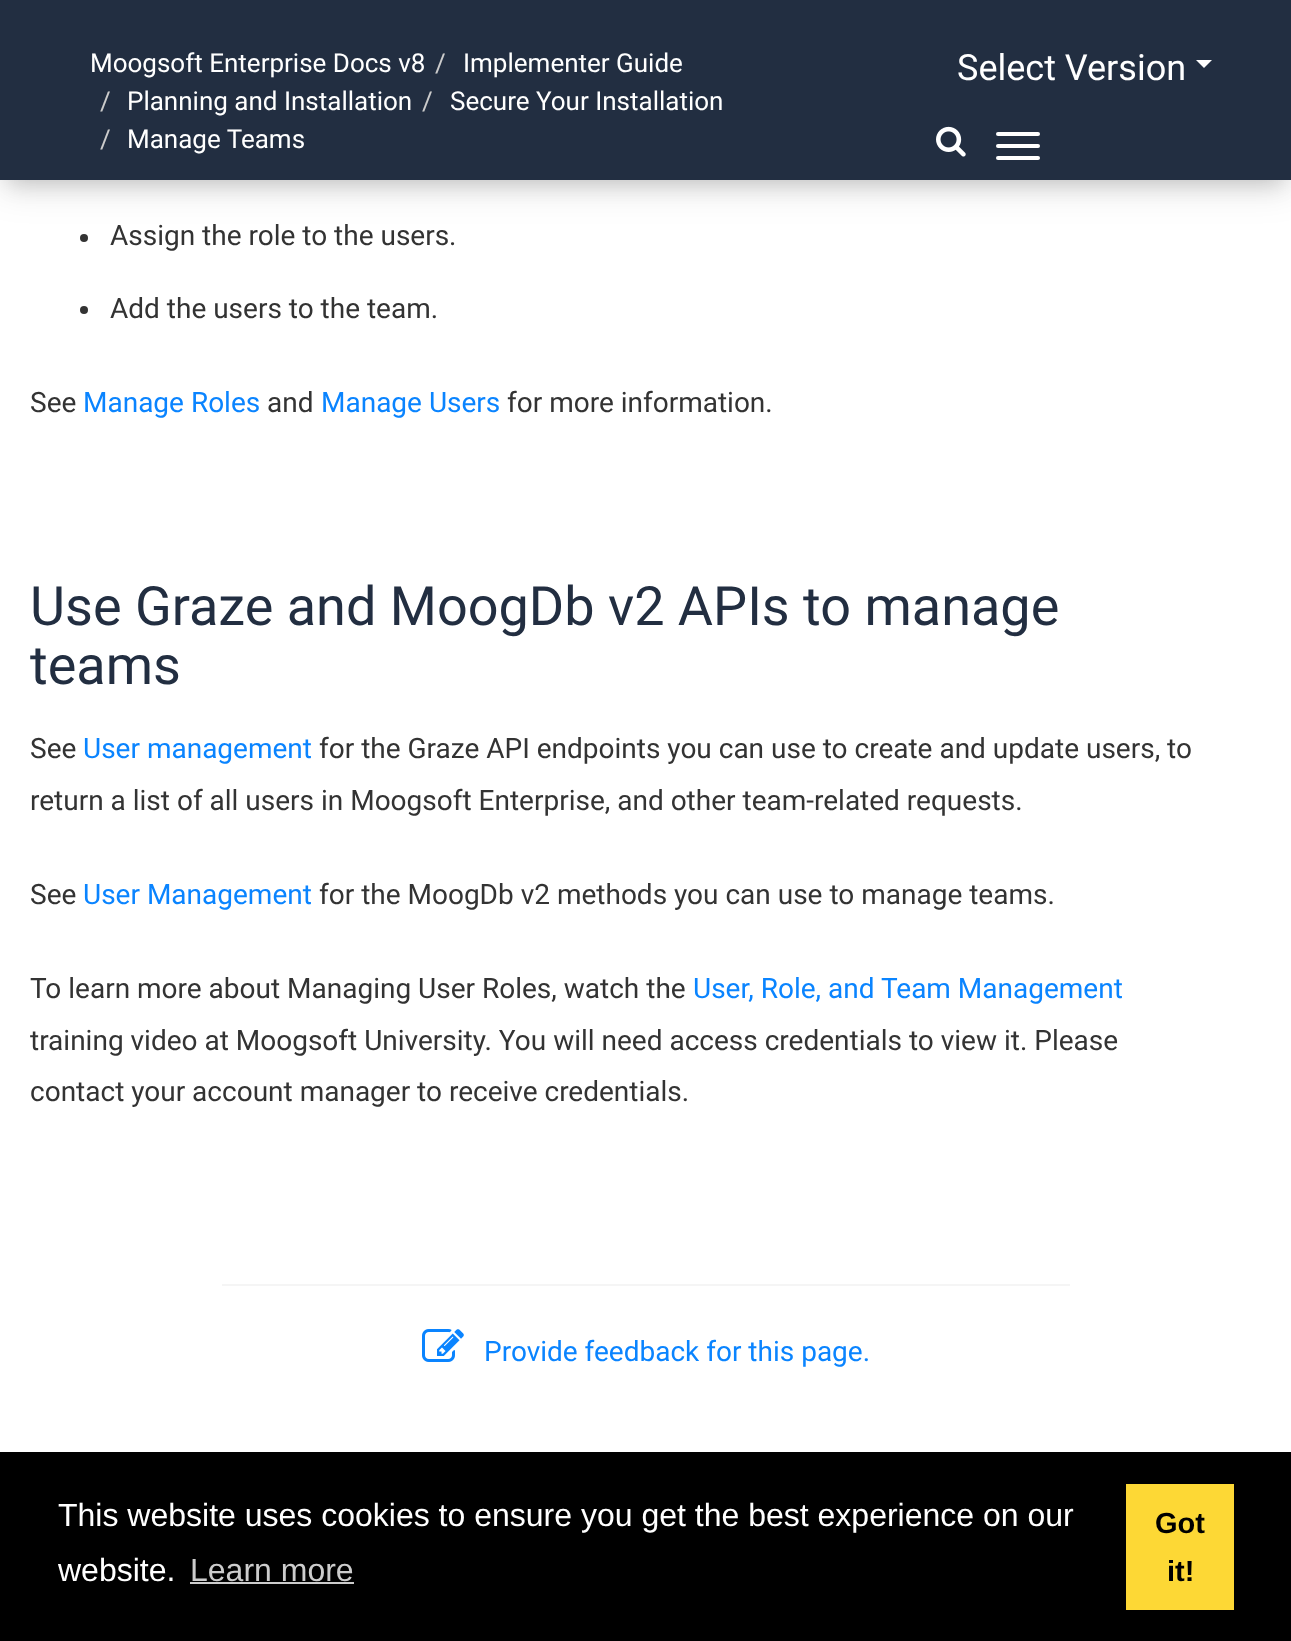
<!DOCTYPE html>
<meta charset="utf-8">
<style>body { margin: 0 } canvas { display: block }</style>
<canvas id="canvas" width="1291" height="1641"></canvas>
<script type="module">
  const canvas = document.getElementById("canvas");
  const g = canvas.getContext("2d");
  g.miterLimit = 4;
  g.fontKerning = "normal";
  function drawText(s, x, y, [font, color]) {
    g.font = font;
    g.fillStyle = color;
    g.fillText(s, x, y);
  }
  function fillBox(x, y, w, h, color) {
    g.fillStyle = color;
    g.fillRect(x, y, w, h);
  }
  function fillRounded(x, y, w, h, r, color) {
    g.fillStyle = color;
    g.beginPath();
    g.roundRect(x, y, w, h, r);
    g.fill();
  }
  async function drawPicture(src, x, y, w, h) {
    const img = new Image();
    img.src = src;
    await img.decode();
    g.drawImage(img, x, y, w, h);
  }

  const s1 = ["26px Roboto", "#FFFFFF"];
  const s2 = ["26px Roboto", "#CCCCCC"];
  const s3 = ["36px Roboto", "#FFFFFF"];
  const s4 = ["28px Roboto", "#333333"];
  const s5 = ["28px Roboto", "#0A84FF"];
  const s6 = ["54px Roboto", "#222E41"];
  const s7 = ["32px Liberation Sans", "#FFFFFF"];
  const s8 = ["32px Liberation Sans", "#CCCCCC"];
  const s9 = ["bold 29px Liberation Sans", "#000000"];

  fillBox(0, 0, 1291, 1641, "#FFFFFF");
  g.fillStyle = "rgba(0, 0, 0, 0.15)";
  g.filter = "blur(10px)";
  g.beginPath();
  g.rect(10, 24, 1272, 160);
  g.fill();
  g.filter = "none";
  g.fillStyle = "#333333";
  g.beginPath();
  g.arc(84, 238, 4, 0, Math.PI * 2);
  g.fill();
  g.fillStyle = "rgba(0, 0, 0, 0.12)";
  g.filter = "blur(18px)";
  g.beginPath();
  g.rect(0, 8, 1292, 180);
  g.fill();
  g.filter = "none";
  fillBox(0, 0, 1291, 180, "#222E41");
  drawText("Moogsoft Enterprise Docs v8", 90, 72, s1);
  drawText("/", 435, 72, s2);
  drawText("Implementer Guide", 463, 72, s1);
  drawText("/", 100, 110, s2);
  drawText("Planning and Installation", 127, 110, s1);
  drawText("/", 422, 110, s2);
  drawText("Secure Your Installation", 450, 110, s1);
  drawText("/", 100, 148, s2);
  drawText("Manage Teams", 127, 148, s1);
  drawText("Select Version", 957, 80, s3);
  g.beginPath();
  g.moveTo(1196, 60);
  g.lineTo(1212, 60);
  g.lineTo(1204, 68);
  g.closePath();
  g.fill();
  await drawPicture("pic1.png", 936, 126, 30, 31);
  fillRounded(996, 132, 44, 4, 2, "#FFFFFF");
  fillRounded(996, 144, 44, 4, 2, "#FFFFFF");
  fillRounded(996, 156, 44, 4, 2, "#FFFFFF");
  drawText("Assign the role to the users.", 110, 245, s4);
  g.beginPath();
  g.arc(84, 310, 4, 0, Math.PI * 2);
  g.fill();
  drawText("Add the users to the team.", 110, 318, s4);
  drawText("See", 30, 412, s4);
  drawText("Manage Roles", 83, 412, s5);
  drawText("and", 267, 412, s4);
  drawText("Manage Users", 321, 412, s5);
  drawText("for more information.", 507, 412, s4);
  drawText("Use Graze and MoogDb v2 APIs to manage", 30, 625, s6);
  drawText("teams", 30, 684, s6);
  drawText("See", 30, 758, s4);
  drawText("User management", 83, 758, s5);
  drawText("for the Graze API endpoints you can use to create and update users, to", 319, 758, s4);
  drawText("return a list of all users in Moogsoft Enterprise, and other team-related requests.", 30, 810, s4);
  drawText("See", 30, 904, s4);
  drawText("User Management", 83, 904, s5);
  drawText("for the MoogDb v2 methods you can use to manage teams.", 319, 904, s4);
  drawText("To learn more about Managing User Roles, watch the", 30, 998, s4);
  drawText("User, Role, and Team Management", 693, 998, s5);
  drawText("training video at Moogsoft University. You will need access credentials to view it. Please", 30, 1050, s4);
  drawText("contact your account manager to receive credentials.", 30, 1101, s4);
  fillBox(222, 1284, 848, 2, "#F5F5F5");
  await drawPicture("pic2.png", 422, 1329, 42, 33);
  drawText("Provide feedback for this page.", 484, 1361, s5);
  fillBox(0, 1452, 1291, 189, "#000000");
  drawText("This website uses cookies to ensure you get the best experience on our", 58, 1526, s7);
  drawText("website.", 58, 1581, s7);
  drawText("Learn more", 190, 1581, s8);
  fillBox(190, 1582, 164, 2, "#CCCCCC");
  fillBox(1126, 1484, 108, 126, "#FDD835");
  drawText("Got", 1155, 1533, s9);
  drawText("it!", 1167, 1581, s9);
</script>
